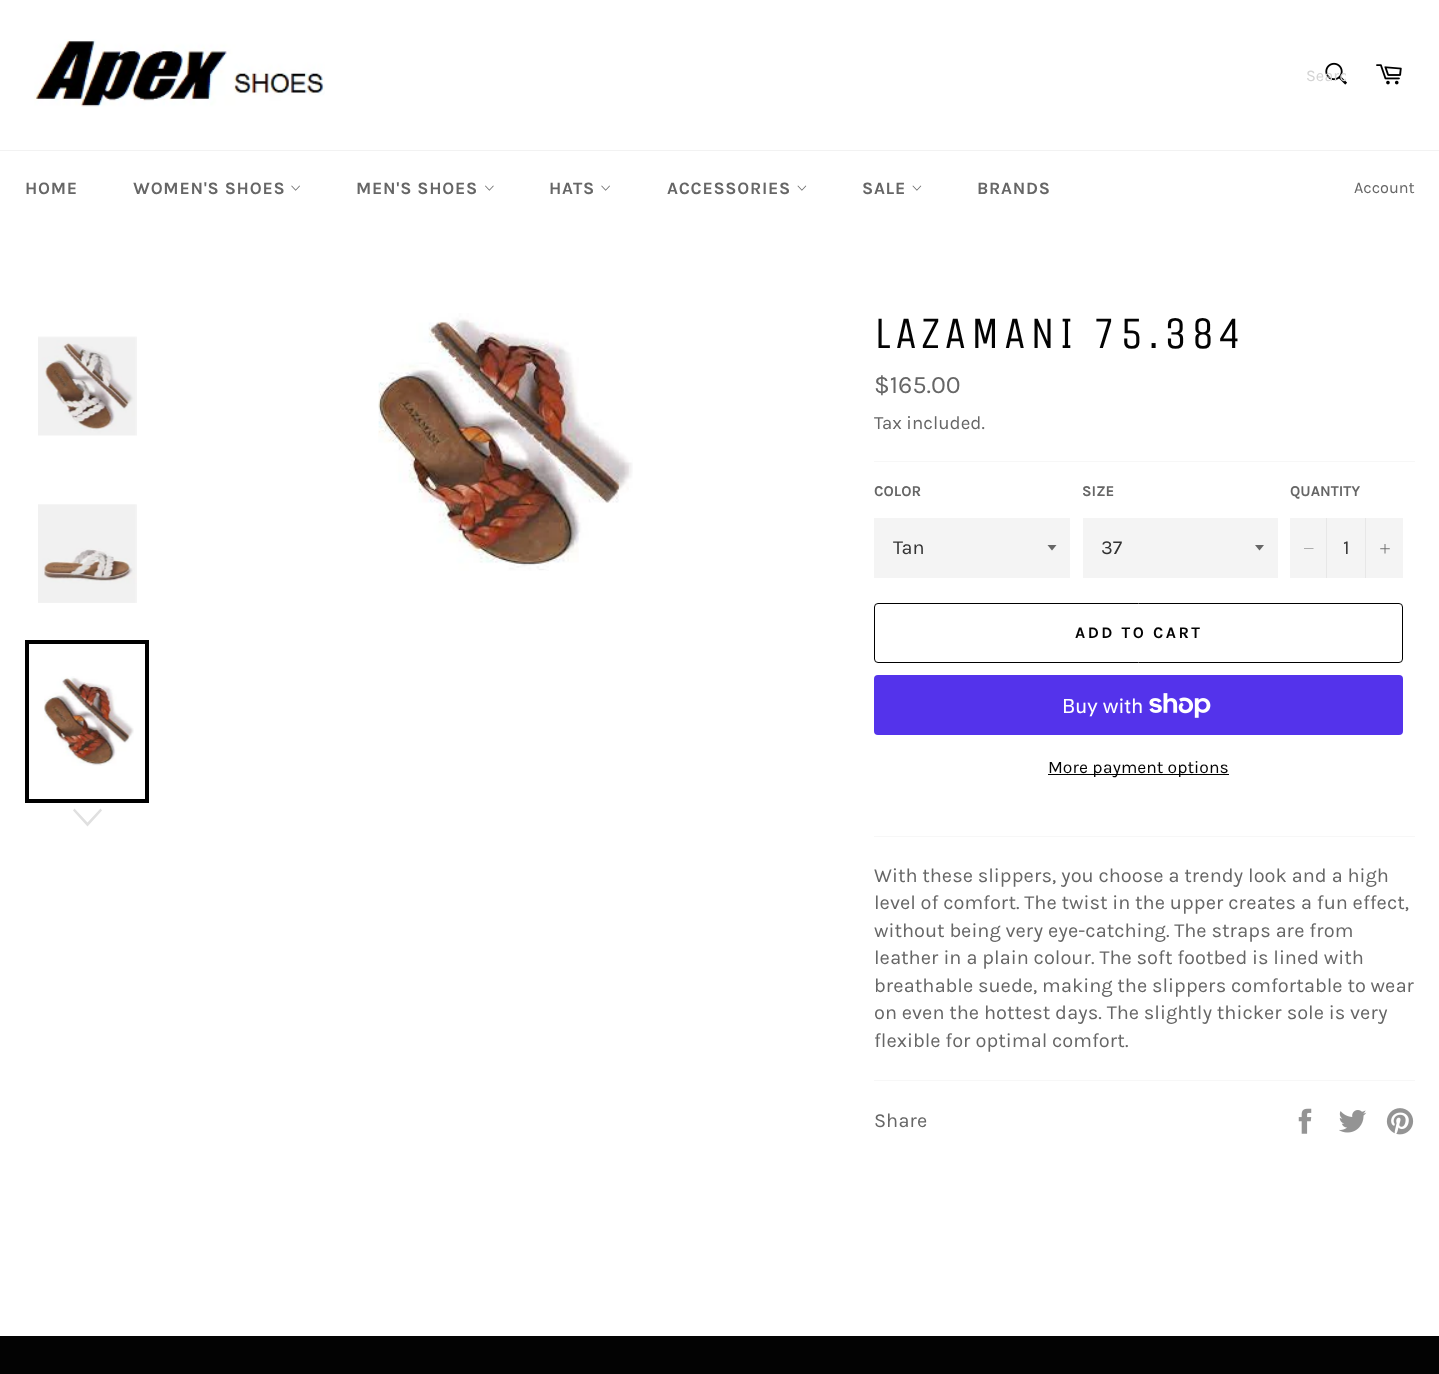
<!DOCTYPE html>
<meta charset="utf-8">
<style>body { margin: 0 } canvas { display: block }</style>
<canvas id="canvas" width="1439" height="1374"></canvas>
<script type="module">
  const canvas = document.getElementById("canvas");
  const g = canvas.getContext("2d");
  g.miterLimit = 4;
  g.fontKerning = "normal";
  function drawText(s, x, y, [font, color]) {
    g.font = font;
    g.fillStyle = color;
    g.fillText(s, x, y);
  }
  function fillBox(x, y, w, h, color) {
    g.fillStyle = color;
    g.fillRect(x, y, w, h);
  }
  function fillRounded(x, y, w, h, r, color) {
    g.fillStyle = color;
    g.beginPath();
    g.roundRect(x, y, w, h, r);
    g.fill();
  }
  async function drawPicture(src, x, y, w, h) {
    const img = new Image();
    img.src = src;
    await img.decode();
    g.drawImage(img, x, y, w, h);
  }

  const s1 = ["16.25px Karla", "#D4D4D4"];
  const s2 = ["bold 17.5px Karla", "#666666"];
  const s3 = ["16.25px Karla", "#666666"];
  const s4 = ["45px Unica One", "#030303"];
  const s5 = ["25px Karla", "#666666"];
  const s6 = ["18.75px Karla", "#666666"];
  const s7 = ["bold 15px Karla", "#666666"];
  const s8 = ["20px Karla", "#333333"];
  const s9 = ["bold 16.25px Karla", "#030303"];
  const s10 = ["20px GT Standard", "#FFFFFF"];
  const s11 = ["17.5px Karla", "#030303"];
  const s12 = ["20px Karla", "#666666"];

  fillBox(0, 0, 1439, 1374, "#FFFFFF");
  await drawPicture("pic1.png", 34, 39, 291, 68);
  await drawPicture("pic2.png", 1325, 62, 22, 23);
  g.save();
  g.beginPath();
  g.rect(1306, 66, 40, 19);
  g.clip();
  drawText("Searc", 1306, 81, s1);
  g.restore();
  await drawPicture("pic3.png", 1376, 64, 26, 21);
  fillBox(0, 150, 1439, 1, "#F2F2F2");
  g.letterSpacing = "0.75px";
  drawText("HOME", 25, 194, s2);
  drawText("WOMEN'S SHOES", 133, 194, s2);
  await drawPicture("pic4.png", 291, 185, 9, 6);
  drawText("MEN'S SHOES", 356, 194, s2);
  await drawPicture("pic5.png", 485, 185, 9, 6);
  drawText("HATS", 549, 194, s2);
  await drawPicture("pic4.png", 601, 185, 9, 6);
  drawText("ACCESSORIES", 667, 194, s2);
  await drawPicture("pic6.png", 797, 185, 10, 6);
  drawText("SALE", 862, 194, s2);
  await drawPicture("pic6.png", 912, 185, 10, 6);
  drawText("BRANDS", 977, 194, s2);
  g.letterSpacing = "0px";
  drawText("Account", 1354, 193, s3);
  await drawPicture("pic7.png", 38, 336, 99, 100);
  await drawPicture("pic8.png", 38, 504, 99, 99);
  await drawPicture("pic9.png", 44, 676, 90, 90);
  g.strokeStyle = "#000000";
  g.lineWidth = 4;
  g.strokeRect(27, 642, 120, 159);
  g.fillStyle = "#E0E0E0";
  g.beginPath();
  g.moveTo(100.5, 808.5);
  g.lineTo(102, 810.5);
  g.lineTo(87.5, 826.5);
  g.lineTo(73, 810.5);
  g.lineTo(74.5, 808.5);
  g.lineTo(87.5, 822.5);
  g.closePath();
  g.fill();
  await drawPicture("pic10.png", 378, 313, 255, 258);
  g.letterSpacing = "4.5px";
  drawText("LAZAMANI 75.384", 874, 348, s4);
  g.letterSpacing = "0px";
  drawText("$165.00", 874, 393, s5);
  drawText("Tax included.", 874, 429, s6);
  fillBox(874, 461, 541, 1, "#F7F7F7");
  drawText("COLOR", 874, 496, s7);
  fillBox(874, 518, 196, 60, "#F4F4F4");
  g.fillStyle = "#666666";
  g.beginPath();
  g.moveTo(1047.5, 545);
  g.lineTo(1052, 550.5);
  g.lineTo(1056.5, 545);
  g.closePath();
  g.fill();
  drawText("Tan", 893, 554, s8);
  drawText("SIZE", 1082, 496, s7);
  fillBox(1083, 518, 195, 60, "#F4F4F4");
  g.fillStyle = "#666666";
  g.beginPath();
  g.moveTo(1255, 545);
  g.lineTo(1259.5, 550.5);
  g.lineTo(1264, 545);
  g.closePath();
  g.fill();
  drawText("37", 1101, 554, s8);
  drawText("QUANTITY", 1290, 496, s7);
  fillBox(1290, 518, 113, 60, "#F4F4F4");
  fillBox(1326, 518, 1, 60, "#E7E7E7");
  g.fillStyle = "#666666";
  g.beginPath();
  g.moveTo(1313.5, 548.5);
  g.lineTo(1313.5, 549);
  g.lineTo(1304, 549);
  g.lineTo(1304, 548.5);
  g.closePath();
  g.fill("evenodd");
  drawText("1", 1343, 554, s8);
  fillBox(1365, 518, 1, 60, "#E7E7E7");
  await drawPicture("pic11.png", 1380, 544, 10, 10);
  g.beginPath();
  g.roundRect(874.5, 603.5, 528, 59, 3.5);
  g.lineWidth = 1;
  g.stroke();
  g.letterSpacing = "2.5px";
  drawText("ADD TO CART", 1075, 638, s9);
  fillRounded(874, 675, 529, 60, 4, "#5433EB");
  g.letterSpacing = "0px";
  drawText("Buy with", 1062, 713, s10);
  await drawPicture("pic12.png", 1149, 693, 62, 25);
  fillBox(1048, 774, 181, 1, "#000000");
  drawText("More payment options", 1048, 773, s11);
  fillBox(874, 836, 541, 1, "#F7F7F7");
  drawText("With these slippers, you choose a trendy look and a high", 874, 882, s12);
  drawText("level of comfort. The twist in the upper creates a fun effect,", 874, 909, s12);
  drawText("without being very eye-catching. The straps are from", 874, 937, s12);
  drawText("leather in a plain colour. The soft footbed is lined with", 874, 964, s12);
  drawText("breathable suede, making the slippers comfortable to wear", 874, 992, s12);
  drawText("on even the hottest days. The slightly thicker sole is very", 874, 1019, s12);
  drawText("flexible for optimal comfort.", 874, 1047, s12);
  fillBox(874, 1080, 541, 1, "#F7F7F7");
  drawText("Share", 874, 1127, s12);
  await drawPicture("pic13.png", 1298, 1108, 14, 26);
  await drawPicture("pic14.png", 1339, 1110, 28, 23);
  await drawPicture("pic15.png", 1386, 1108, 28, 27);
  fillBox(0, 1336, 1439, 38, "#030303");
</script>
